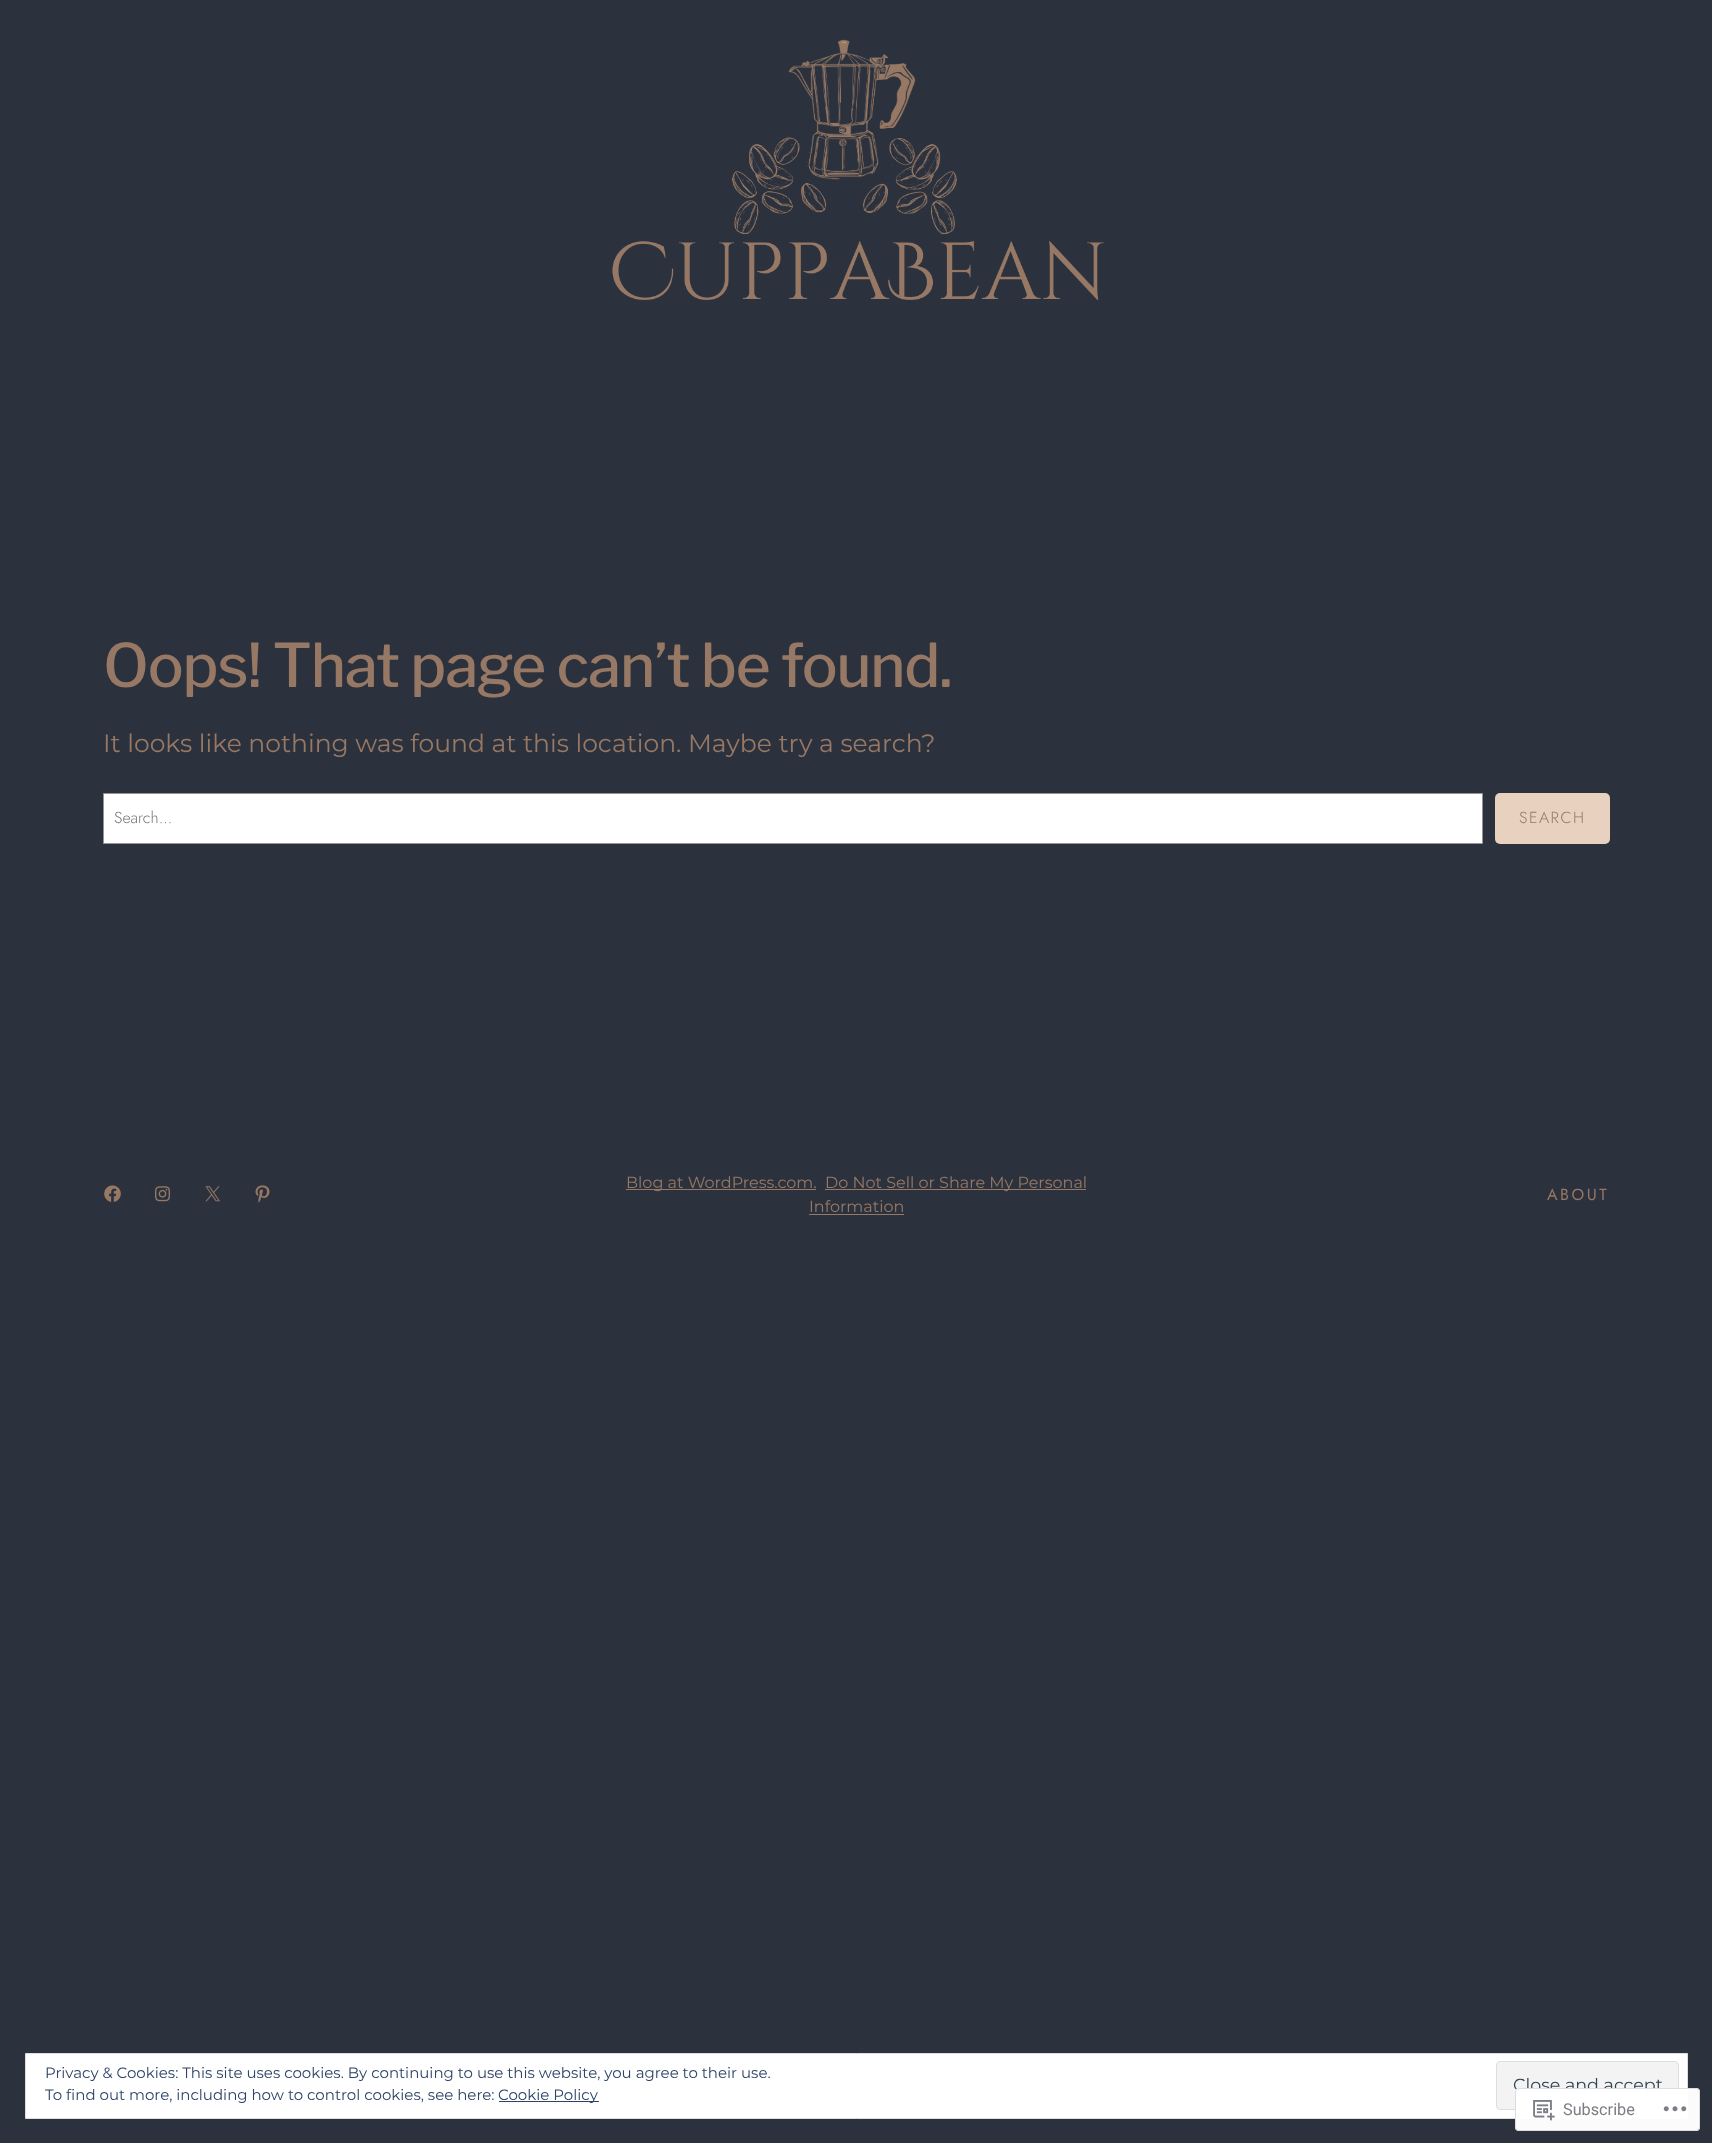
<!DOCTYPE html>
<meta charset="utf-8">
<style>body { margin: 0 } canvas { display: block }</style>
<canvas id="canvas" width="1712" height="2143"></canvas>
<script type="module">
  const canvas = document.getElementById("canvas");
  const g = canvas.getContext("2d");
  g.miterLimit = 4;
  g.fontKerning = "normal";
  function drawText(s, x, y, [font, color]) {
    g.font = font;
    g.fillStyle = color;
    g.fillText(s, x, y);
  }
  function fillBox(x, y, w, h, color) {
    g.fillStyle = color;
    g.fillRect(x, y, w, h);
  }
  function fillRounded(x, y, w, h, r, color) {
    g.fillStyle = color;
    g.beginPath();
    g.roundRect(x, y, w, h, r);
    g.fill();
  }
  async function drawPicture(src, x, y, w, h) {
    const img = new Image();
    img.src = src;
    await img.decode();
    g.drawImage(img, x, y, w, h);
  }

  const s1 = ["500 60px Libre Franklin", "#967865"];
  const s2 = ["25px Montserrat", "#967865"];
  const s3 = ["300 16px Jost", "#757575"];
  const s4 = ["300 16px Jost", "#967865"];
  const s5 = ["16px Montserrat", "#967865"];
  const s6 = ["16px Jost", "#967865"];
  const s7 = ["15px Montserrat", "#2E4467"];
  const s8 = ["17.5px Montserrat", "#2E4453"];
  const s9 = ["16.25px Roboto", "#7B7F84"];

  fillBox(0, 0, 1712, 2143, "#2C323D");
  await drawPicture("pic1.png", 612, 39, 492, 261);
  g.letterSpacing = "-1.2px";
  drawText("Oops! That page can’t be found.", 103, 687, s1);
  g.letterSpacing = "0px";
  drawText("It looks like nothing was found at this location. Maybe try a search?", 103, 752, s2);
  g.fillStyle = "#FFFFFF";
  g.beginPath();
  g.rect(103.5, 793.5, 1379, 50);
  g.fill();
  g.strokeStyle = "#949494";
  g.stroke();
  drawText("Search...", 114, 823, s3);
  fillRounded(1495, 793, 115, 51, 5, "#E8D1BE");
  g.letterSpacing = "1.5px";
  drawText("SEARCH", 1519, 823, s4);
  await drawPicture("pic2.png", 104, 1185, 17, 17);
  await drawPicture("pic3.png", 155, 1186, 15, 16);
  await drawPicture("pic4.png", 205, 1186, 15, 16);
  await drawPicture("pic5.png", 255, 1185, 15, 18);
  fillBox(626, 1189, 190, 1, "#967865");
  g.letterSpacing = "0px";
  drawText("Blog at WordPress.com.", 626, 1188, s5);
  fillBox(825, 1189, 261, 1, "#967865");
  drawText("Do Not Sell or Share My Personal", 825, 1188, s5);
  drawText("Information", 809, 1212, s5);
  fillBox(809, 1214, 95, 1, "#967865");
  g.letterSpacing = "2.5px";
  drawText("ABOUT", 1547, 1200, s6);
  g.fillStyle = "#FFFFFF";
  g.beginPath();
  g.rect(25.5, 2053.5, 1662, 65);
  g.fill();
  g.strokeStyle = "#DEDEDE";
  g.stroke();
  g.letterSpacing = "0px";
  drawText("Privacy & Cookies: This site uses cookies. By continuing to use this website, you agree to their use.", 45, 2078, s7);
  drawText("To find out more, including how to control cookies, see here:", 45, 2100, s7);
  fillBox(499, 2101, 100, 1, "#2E4467");
  drawText("Cookie Policy", 498, 2100, s7);
  g.fillStyle = "#F3F3F3";
  g.beginPath();
  g.roundRect(1496.5, 2061.5, 182, 48, 3.5);
  g.fill();
  g.stroke();
  drawText("Close and accept", 1513, 2091, s8);
  fillRounded(1515, 2088, 185, 43, 4, "rgba(255, 255, 255, 0.98)");
  g.beginPath();
  g.roundRect(1515.5, 2088.5, 184, 42, 3.5);
  g.strokeStyle = "rgba(220, 220, 222, 0.98)";
  g.stroke();
  await drawPicture("pic6.png", 1533, 2100, 22, 21);
  drawText("Subscribe", 1563, 2115, s9);
  await drawPicture("pic7.png", 1663, 2106, 24, 6);
</script>
